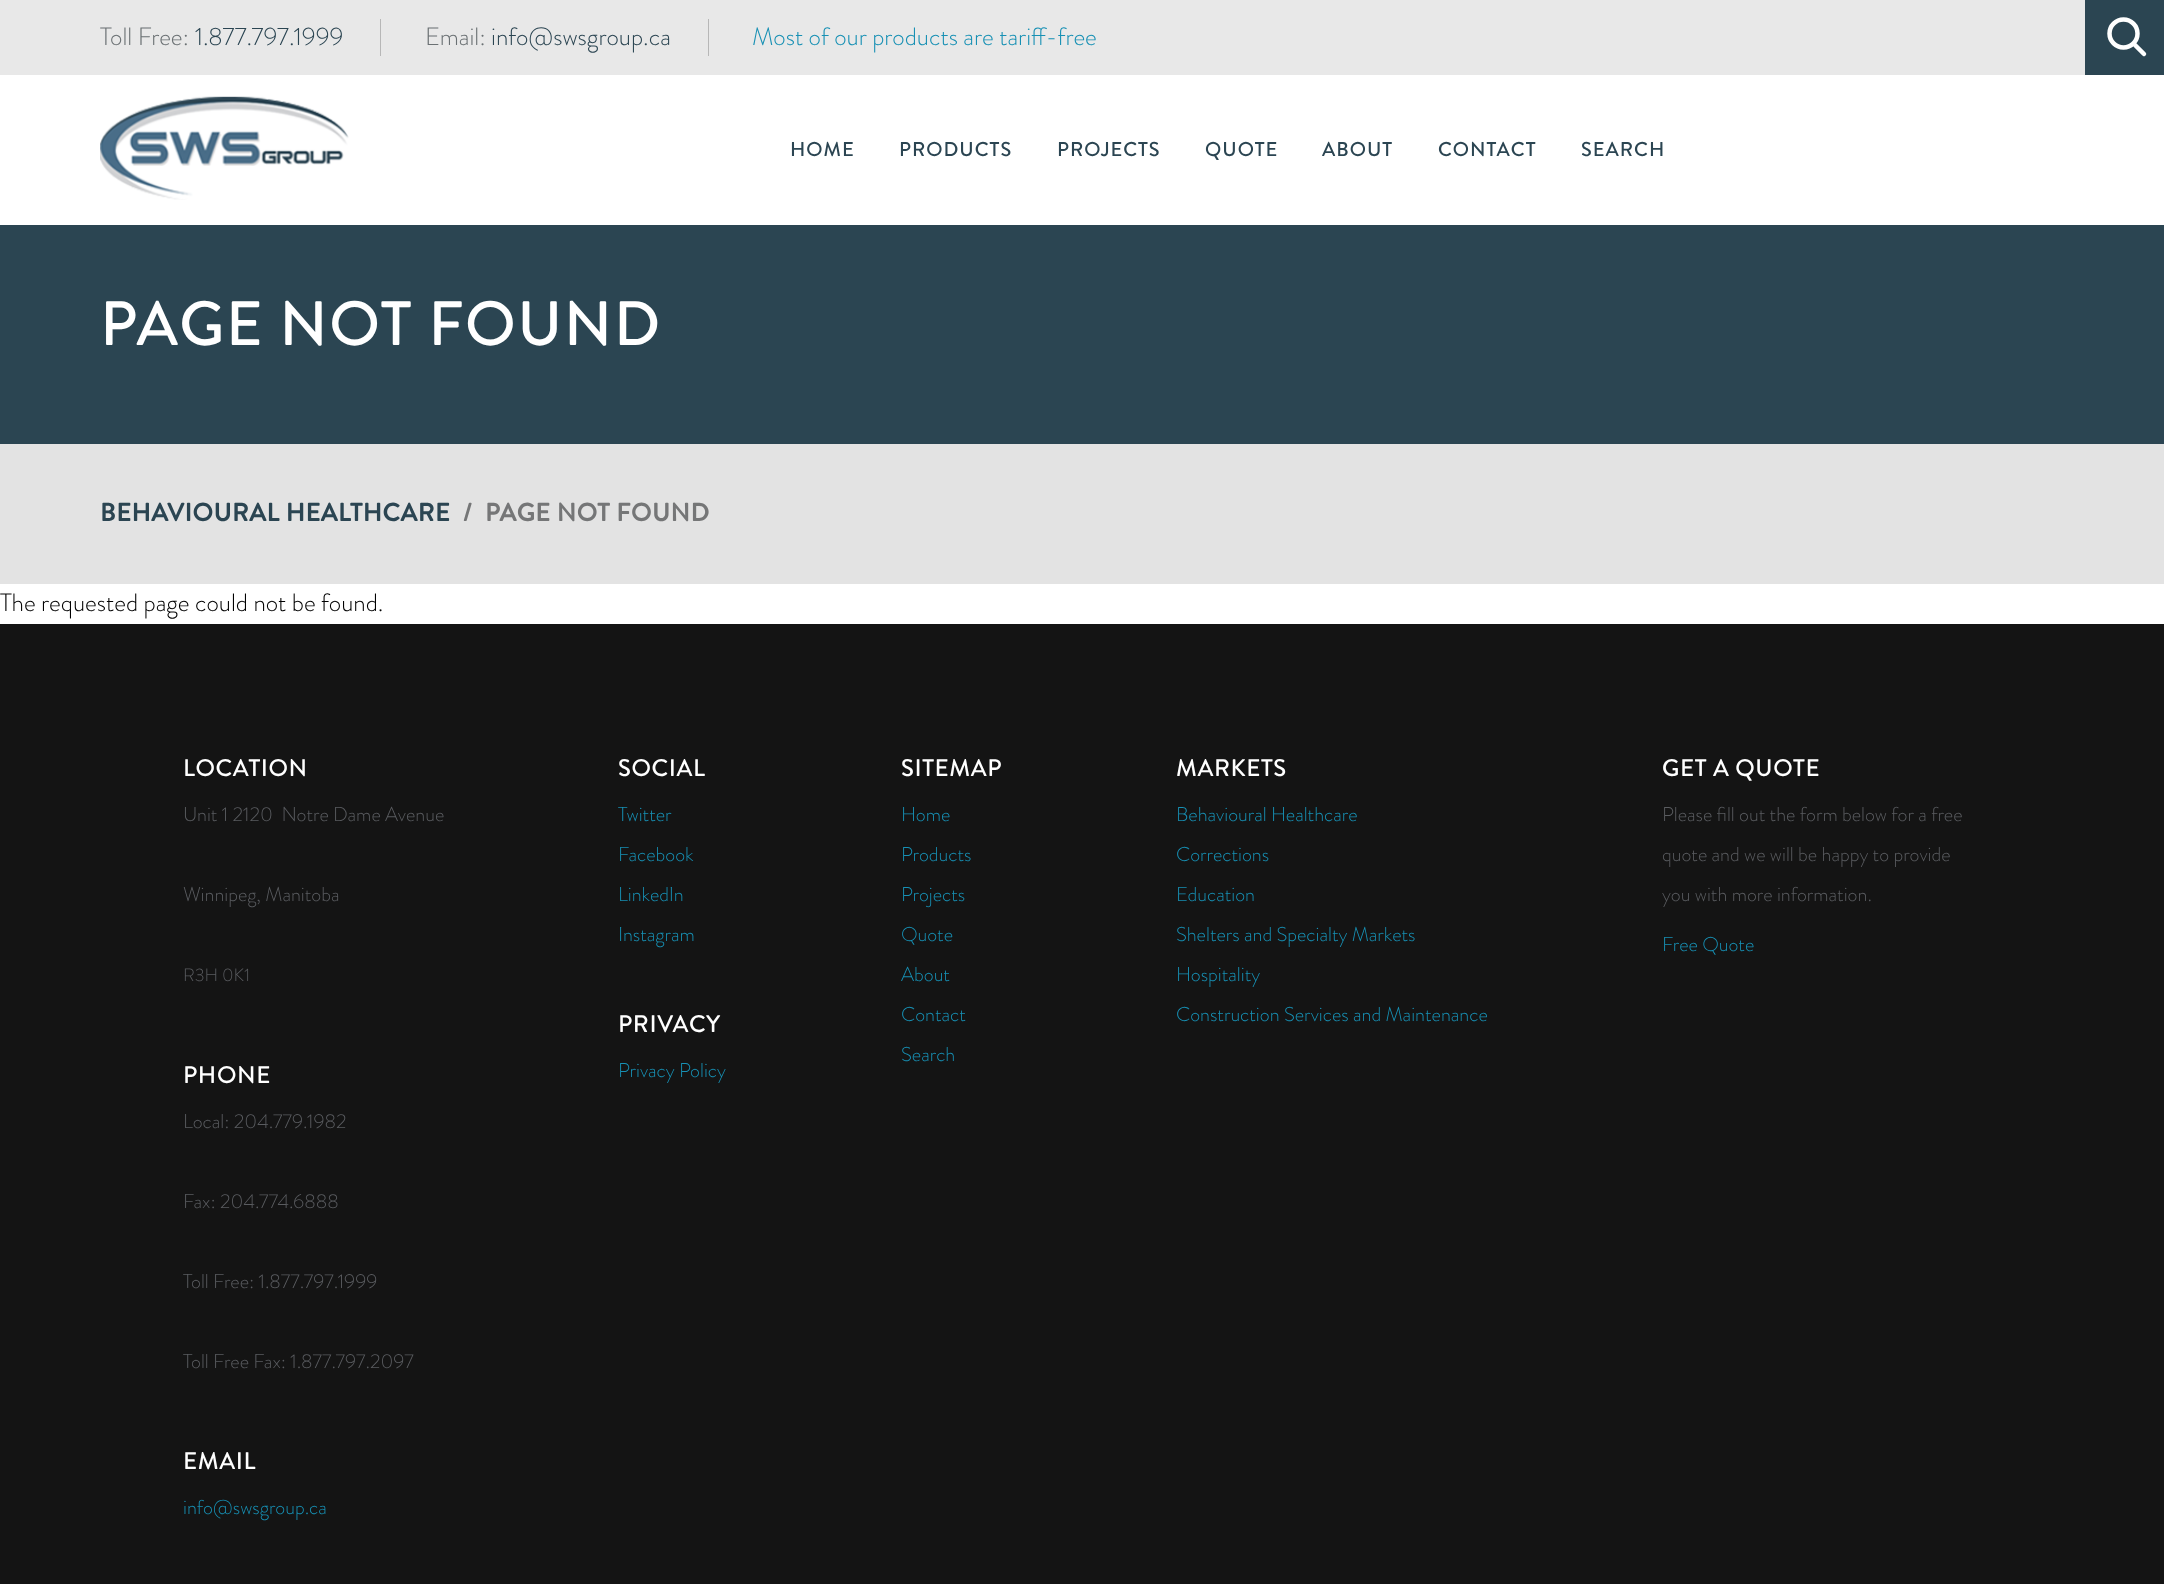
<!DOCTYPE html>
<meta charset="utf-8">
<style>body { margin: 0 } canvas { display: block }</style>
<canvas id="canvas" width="2164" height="1584"></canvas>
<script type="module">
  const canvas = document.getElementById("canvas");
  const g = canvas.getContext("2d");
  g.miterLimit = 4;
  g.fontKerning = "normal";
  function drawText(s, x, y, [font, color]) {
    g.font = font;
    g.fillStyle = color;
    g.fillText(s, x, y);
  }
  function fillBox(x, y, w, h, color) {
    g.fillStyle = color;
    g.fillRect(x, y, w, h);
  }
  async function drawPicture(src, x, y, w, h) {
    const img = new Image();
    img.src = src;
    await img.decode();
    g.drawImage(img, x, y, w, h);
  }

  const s1 = ["300 25px Brandon Grotesque", "#6A7073"];
  const s2 = ["300 25px Brandon Grotesque", "#2B4552"];
  const s3 = ["300 25px Brandon Grotesque", "#1790B4"];
  const s4 = ["500 20px Brandon Grotesque", "#2B4552"];
  const s5 = ["500 62.5px Brandon Grotesque", "#FFFFFF"];
  const s6 = ["bold 25px Brandon Grotesque", "#2B4552"];
  const s7 = ["bold 25px Brandon Grotesque", "#757677"];
  const s8 = ["300 25px Brandon Grotesque", "#000000"];
  const s9 = ["500 24px Brandon Grotesque", "#FFFFFF"];
  const s10 = ["300 20px Brandon Grotesque", "#5A5C60"];
  const s11 = ["300 18px Brandon Grotesque", "#5A5C60"];
  const s12 = ["300 20px Brandon Grotesque", "#1790B4"];

  fillBox(0, 0, 2164, 1584, "#FFFFFF");
  fillBox(0, 0, 2085, 75, "#E8E8E8");
  fillBox(380, 19, 1, 37, "#B7B7B7");
  drawText("Toll Free:", 100, 45, s1);
  drawText("1.877.797.1999", 195, 45, s2);
  fillBox(708, 19, 1, 37, "#B7B7B7");
  drawText("Email:", 425, 45, s1);
  drawText("info@swsgroup.ca", 491, 45, s2);
  drawText("Most of our products are tariff-free", 752, 45, s3);
  fillBox(2085, 0, 79, 75, "#2B4552");
  g.beginPath();
  g.moveTo(2135, 45);
  g.lineTo(2144, 54);
  g.strokeStyle = "#FFFFFF";
  g.lineWidth = 4.5;
  g.lineCap = "round";
  g.lineJoin = "round";
  g.stroke();
  g.beginPath();
  g.arc(2123.5, 33.5, 14, 0, Math.PI * 2);
  g.stroke();
  await drawPicture("pic1.png", 100, 96, 249, 104);
  g.letterSpacing = "1px";
  drawText("HOME", 790, 156, s4);
  drawText("PRODUCTS", 899, 156, s4);
  drawText("PROJECTS", 1057, 156, s4);
  drawText("QUOTE", 1205, 156, s4);
  drawText("ABOUT", 1322, 156, s4);
  drawText("CONTACT", 1438, 156, s4);
  drawText("SEARCH", 1581, 156, s4);
  fillBox(0, 225, 2164, 219, "#2B4552");
  g.letterSpacing = "1.5px";
  drawText("PAGE NOT FOUND", 100, 345, s5);
  fillBox(0, 444, 2164, 140, "#E3E3E3");
  g.letterSpacing = "0.6px";
  drawText("BEHAVIOURAL HEALTHCARE", 100, 521, s6);
  drawText("/", 463, 521, s7);
  drawText("PAGE NOT FOUND", 485, 521, s7);
  g.letterSpacing = "0px";
  drawText("The requested page could not be found.", 0, 611, s8);
  fillBox(0, 624, 2164, 960, "#141414");
  g.letterSpacing = "0.6px";
  drawText("LOCATION", 183, 776, s9);
  g.letterSpacing = "0px";
  drawText("Unit 1 2120  Notre Dame Avenue", 183, 821, s10);
  drawText("Winnipeg, Manitoba", 183, 901, s10);
  drawText("R3H", 183, 981, s11);
  drawText("0K1", 222, 981, s11);
  g.letterSpacing = "0.6px";
  drawText("PHONE", 183, 1083, s9);
  g.letterSpacing = "0px";
  drawText("Local: 204.779.1982", 183, 1128, s10);
  drawText("Fax: 204.774.6888", 183, 1208, s10);
  drawText("Toll Free: 1.877.797.1999", 183, 1288, s10);
  drawText("Toll Free Fax: 1.877.797.2097", 183, 1368, s10);
  g.letterSpacing = "0.6px";
  drawText("EMAIL", 183, 1469, s9);
  g.letterSpacing = "0px";
  drawText("info@swsgroup.ca", 183, 1514, s12);
  g.letterSpacing = "0.6px";
  drawText("SOCIAL", 618, 776, s9);
  g.letterSpacing = "0px";
  drawText("Twitter", 618, 821, s12);
  drawText("Facebook", 618, 861, s12);
  drawText("LinkedIn", 618, 901, s12);
  drawText("Instagram", 618, 941, s12);
  g.letterSpacing = "0.6px";
  drawText("PRIVACY", 618, 1032, s9);
  g.letterSpacing = "0px";
  drawText("Privacy Policy", 618, 1077, s12);
  g.letterSpacing = "0.6px";
  drawText("SITEMAP", 901, 776, s9);
  g.letterSpacing = "0px";
  drawText("Home", 901, 821, s12);
  drawText("Products", 901, 861, s12);
  drawText("Projects", 901, 901, s12);
  drawText("Quote", 901, 941, s12);
  drawText("About", 901, 981, s12);
  drawText("Contact", 901, 1021, s12);
  drawText("Search", 901, 1061, s12);
  g.letterSpacing = "0.6px";
  drawText("MARKETS", 1176, 776, s9);
  g.letterSpacing = "0px";
  drawText("Behavioural Healthcare", 1176, 821, s12);
  drawText("Corrections", 1176, 861, s12);
  drawText("Education", 1176, 901, s12);
  drawText("Shelters and Specialty Markets", 1176, 941, s12);
  drawText("Hospitality", 1176, 981, s12);
  drawText("Construction Services and Maintenance", 1176, 1021, s12);
  g.letterSpacing = "0.6px";
  drawText("GET A QUOTE", 1662, 776, s9);
  g.letterSpacing = "0px";
  drawText("Please fill out the form below for a free", 1662, 821, s10);
  drawText("quote and we will be happy to provide", 1662, 861, s10);
  drawText("you with more information.", 1662, 901, s10);
  drawText("Free Quote", 1662, 951, s12);
</script>
